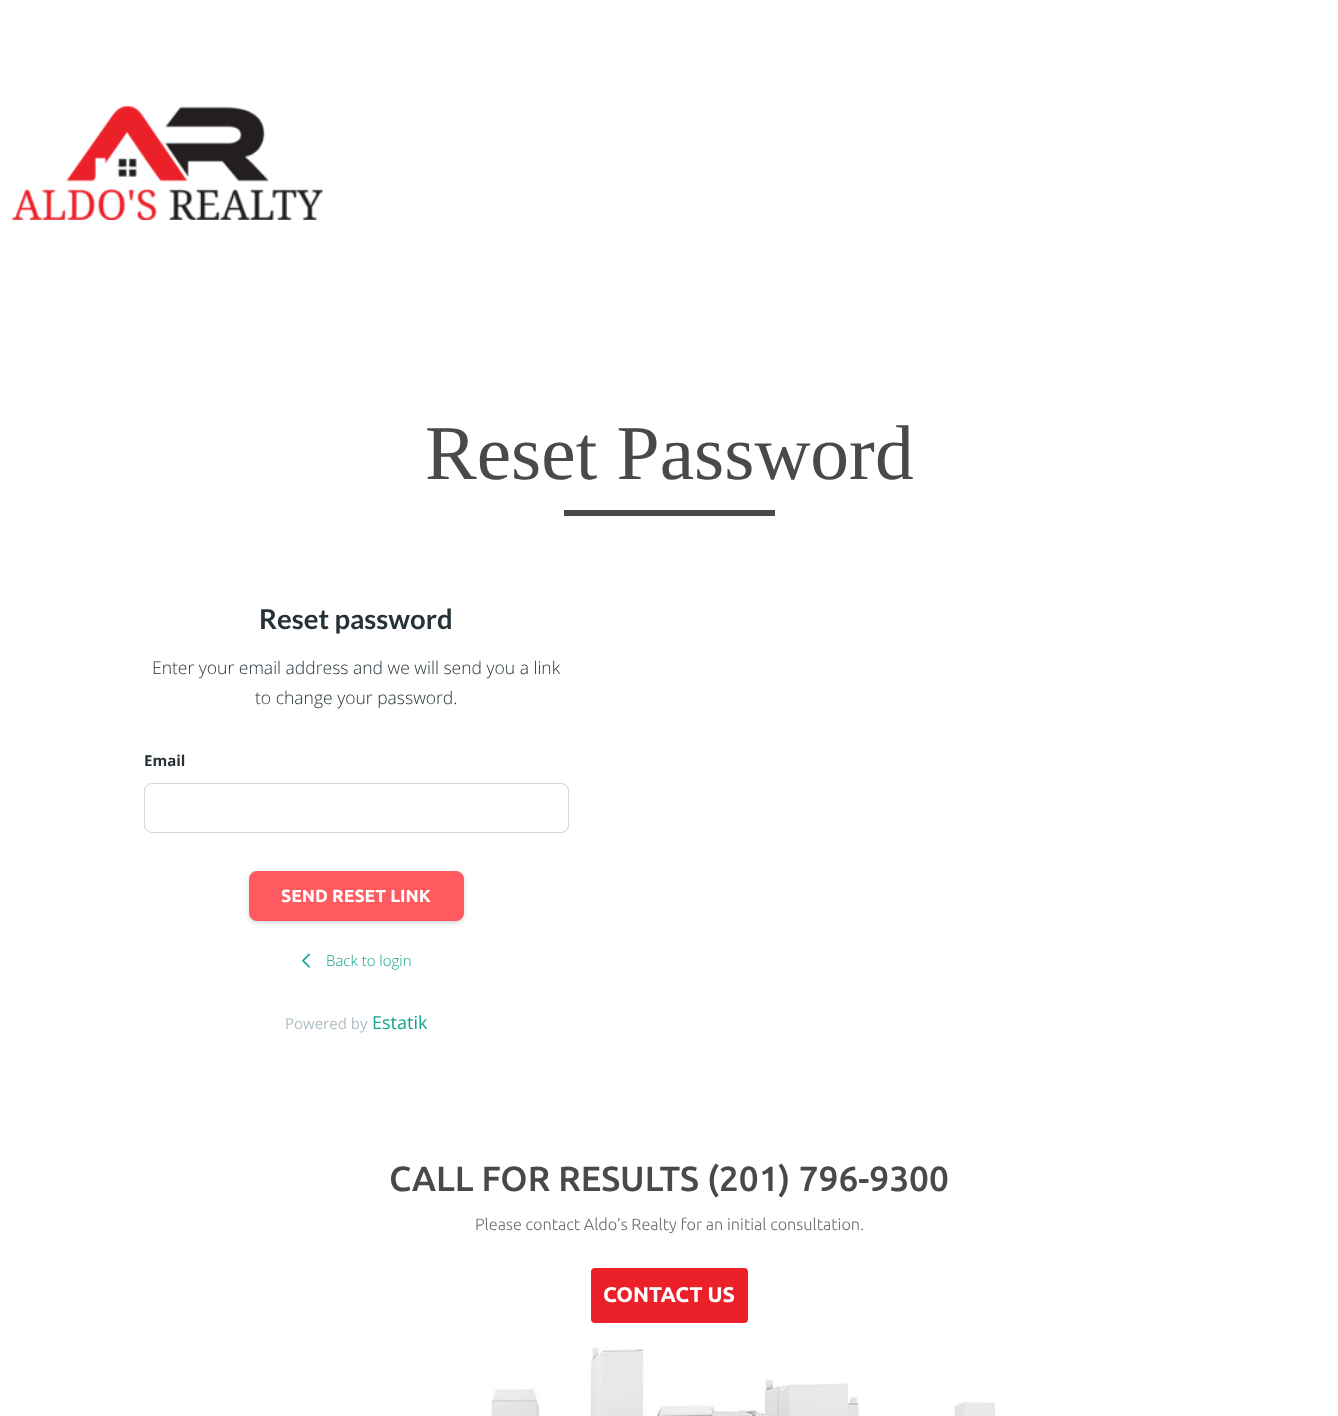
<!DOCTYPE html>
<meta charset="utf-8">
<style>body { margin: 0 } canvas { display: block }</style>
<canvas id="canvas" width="1338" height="1416"></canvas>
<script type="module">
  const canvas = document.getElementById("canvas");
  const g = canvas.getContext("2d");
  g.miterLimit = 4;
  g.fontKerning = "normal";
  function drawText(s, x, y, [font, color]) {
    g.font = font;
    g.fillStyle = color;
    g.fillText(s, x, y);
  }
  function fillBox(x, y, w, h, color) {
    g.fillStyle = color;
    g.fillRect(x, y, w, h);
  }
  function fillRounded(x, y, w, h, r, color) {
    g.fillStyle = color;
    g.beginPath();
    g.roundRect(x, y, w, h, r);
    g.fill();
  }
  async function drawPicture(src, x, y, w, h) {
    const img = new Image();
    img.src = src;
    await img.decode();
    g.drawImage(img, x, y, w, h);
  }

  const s1 = ["77.5px Tinos", "#49484C"];
  const s2 = ["bold 27.5px Lato", "#263238"];
  const s3 = ["300 17.5px Open Sans", "#263238"];
  const s4 = ["bold 15px Open Sans", "#263238"];
  const s5 = ["bold 17.5px Ubuntu", "#FFFFFF"];
  const s6 = ["300 15px Open Sans", "#13A48E"];
  const s7 = ["15px Open Sans", "#B0BEC5"];
  const s8 = ["18px Open Sans", "#13A48E"];
  const s9 = ["500 35px Ubuntu", "#49484C"];
  const s10 = ["300 16.25px Ubuntu", "#6C7073"];
  const s11 = ["bold 21.25px Ubuntu", "#FFFFFF"];

  fillBox(0, 0, 1338, 1416, "#FFFFFF");
  await drawPicture("pic1.png", 12, 106, 311, 114);
  drawText("Reset Password", 425, 479, s1);
  fillBox(564, 510, 211, 6, "#49484C");
  drawText("Reset password", 259, 629, s2);
  drawText("Enter your email address and we will send you a link", 152, 674, s3);
  drawText("to change your password.", 255, 704, s3);
  drawText("Email", 144, 766, s4);
  g.beginPath();
  g.roundRect(144.5, 783.5, 424, 49, 7.5);
  g.strokeStyle = "#CFD8DC";
  g.stroke();
  g.fillStyle = "rgba(38, 50, 56, 0.2)";
  g.filter = "blur(2.5px)";
  g.beginPath();
  g.roundRect(249, 873, 215, 50, 8);
  g.fill();
  g.filter = "none";
  g.fillStyle = "#FF5A5F";
  g.beginPath();
  g.roundRect(250.5, 872.5, 212, 47, 6.5);
  g.fill();
  g.strokeStyle = "#FF5A5F";
  g.lineWidth = 3;
  g.stroke();
  drawText("SEND RESET LINK", 281, 902, s5);
  await drawPicture("pic2.png", 301, 953, 10, 15);
  drawText("Back to login", 326, 966, s6);
  drawText("Powered by", 285, 1029, s7);
  drawText("Estatik", 372, 1029, s8);
  drawText("CALL FOR RESULTS (201) 796-9300", 389, 1191, s9);
  drawText("Please contact Aldo’s Realty for an initial consultation.", 475, 1230, s10);
  fillRounded(591, 1268, 157, 55, 4, "#EC2028");
  drawText("CONTACT US", 603, 1302, s11);
  await drawPicture("pic3.png", 491, 1347, 504, 69);
</script>
